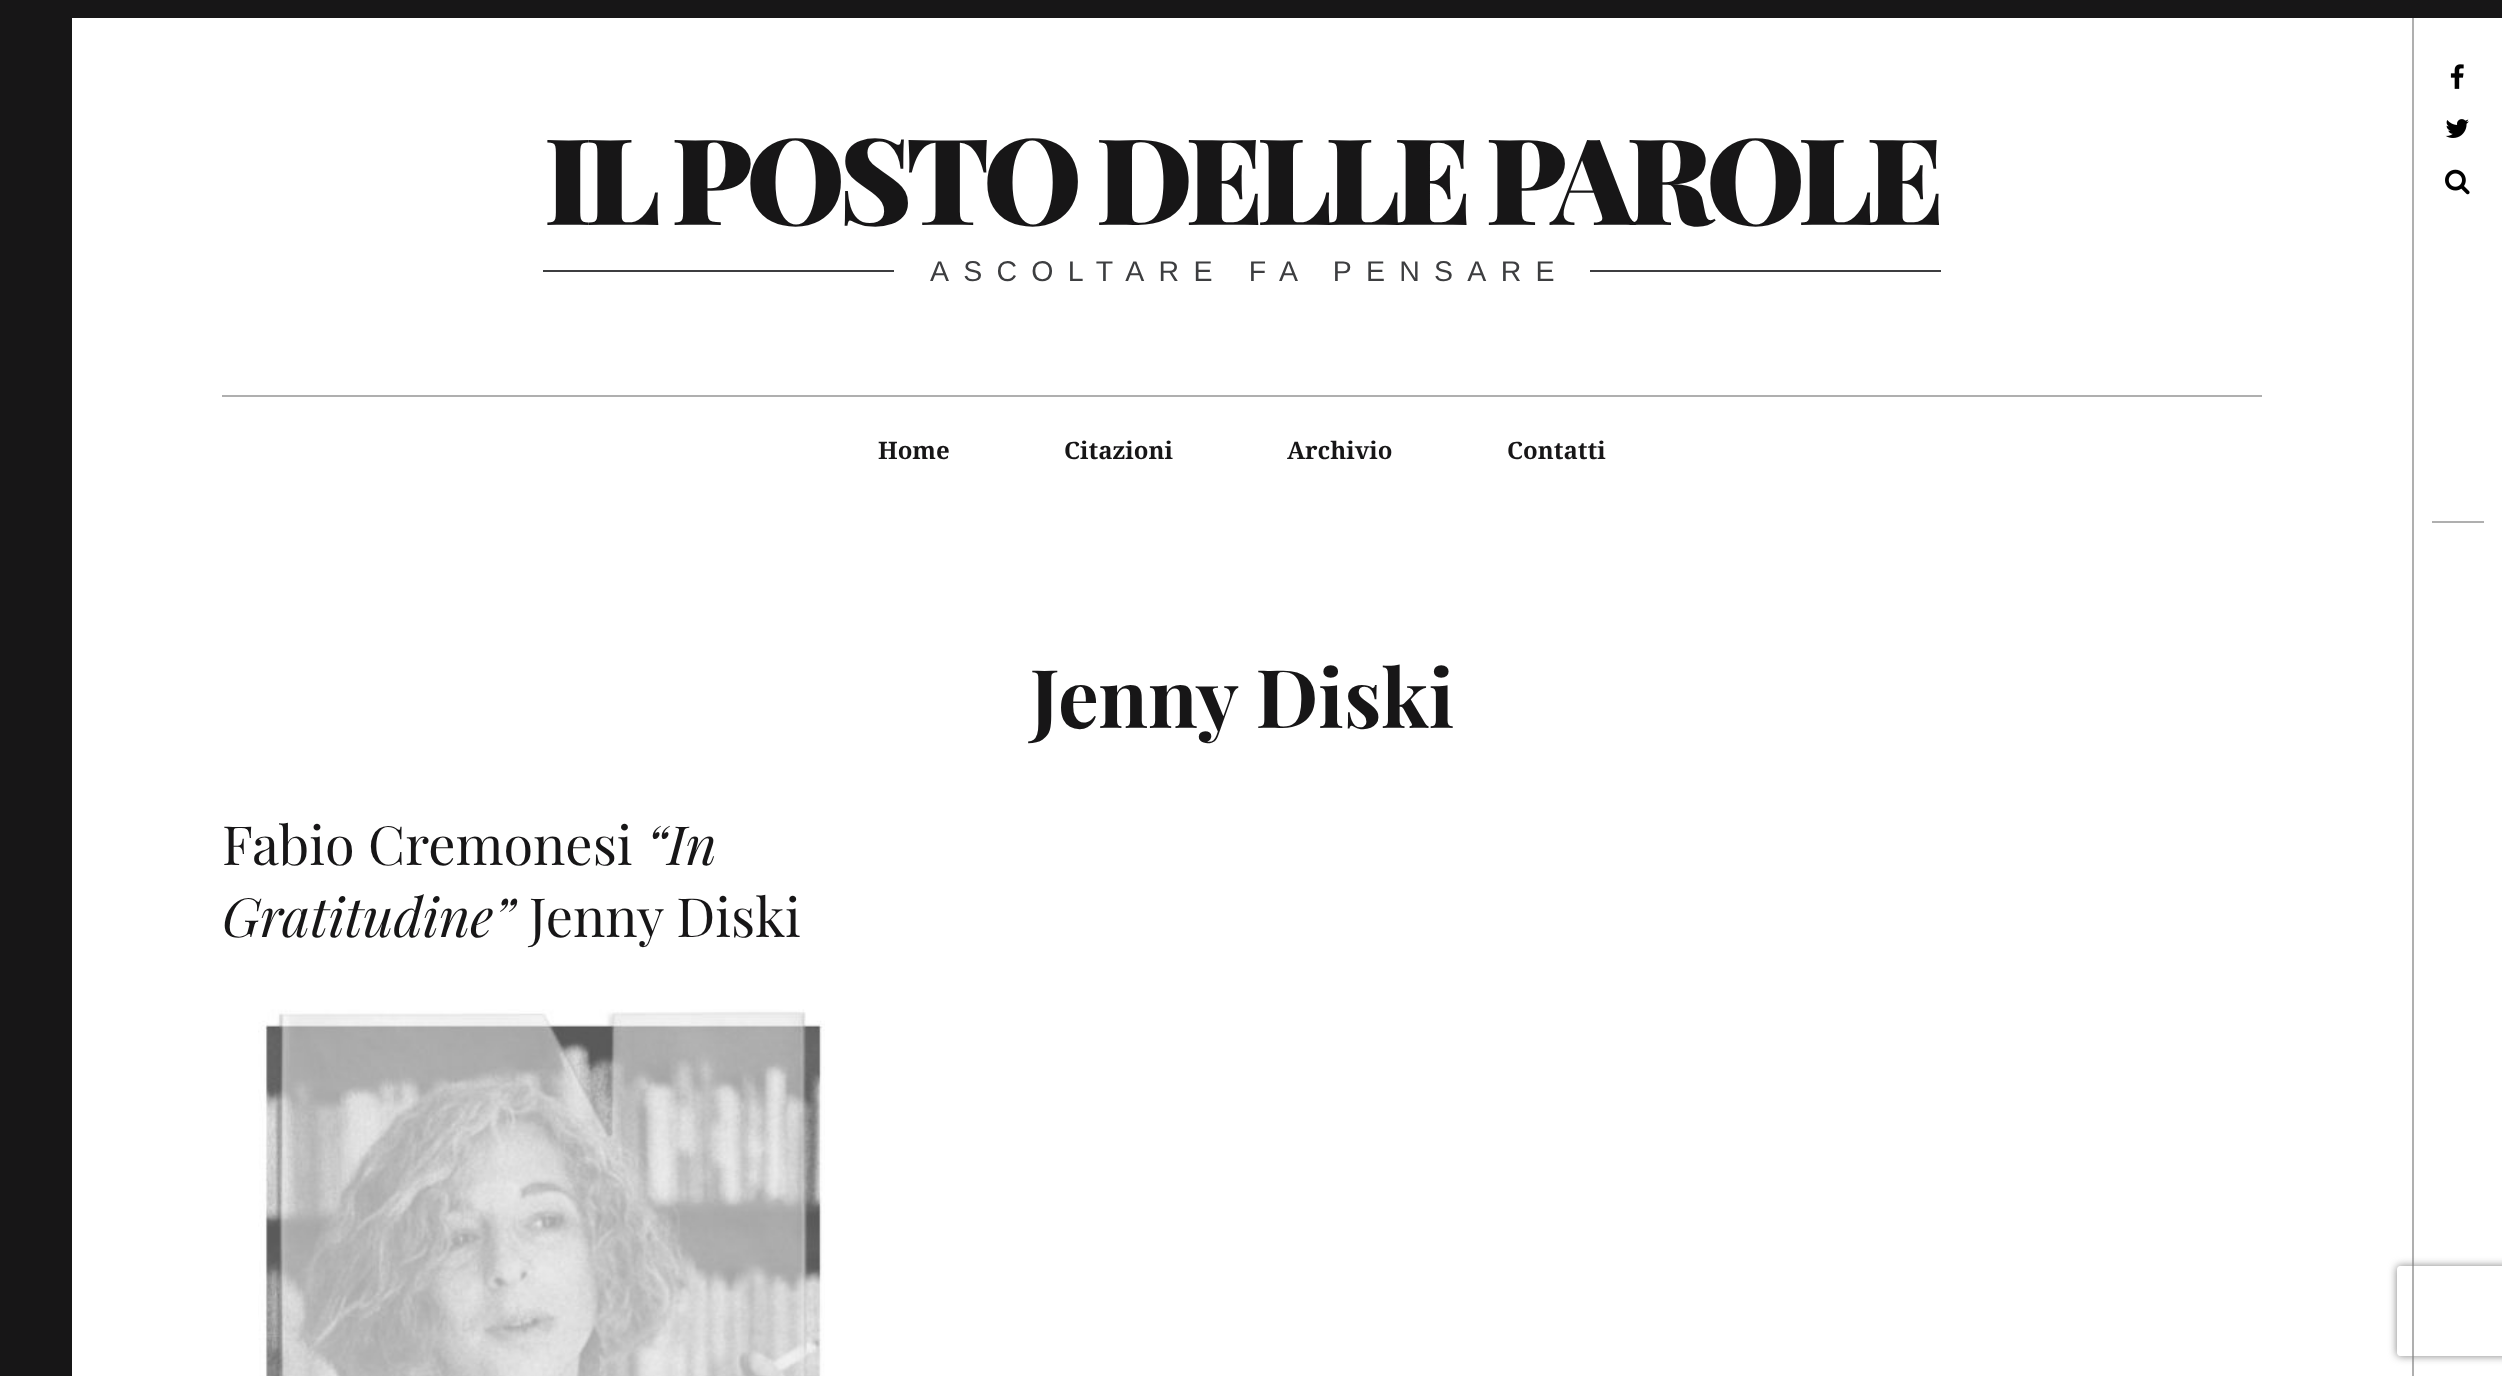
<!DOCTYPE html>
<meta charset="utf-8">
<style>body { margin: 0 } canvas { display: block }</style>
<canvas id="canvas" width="2502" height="1376"></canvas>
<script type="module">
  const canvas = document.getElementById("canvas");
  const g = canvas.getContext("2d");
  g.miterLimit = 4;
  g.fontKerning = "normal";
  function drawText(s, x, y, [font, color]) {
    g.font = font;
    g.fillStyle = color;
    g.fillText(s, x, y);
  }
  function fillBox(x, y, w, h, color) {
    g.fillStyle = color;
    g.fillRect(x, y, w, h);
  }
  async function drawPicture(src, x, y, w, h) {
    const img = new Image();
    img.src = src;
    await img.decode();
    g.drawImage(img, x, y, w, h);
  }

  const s1 = ["900 120px Playfair Display", "#171617"];
  const s2 = ["28.5px Liberation Sans", "#3D3E40"];
  const s3 = ["bold 24px Droid Serif", "#171617"];
  const s4 = ["bold 81px Playfair Display", "#171617"];
  const s5 = ["54px Playfair Display", "#171617"];
  const s6 = ["italic 54px Playfair Display", "#171617"];

  fillBox(0, 0, 2502, 1376, "#FFFFFF");
  fillBox(0, 0, 72, 1376, "#171617");
  fillBox(72, 0, 2430, 18, "#171617");
  g.letterSpacing = "-6.6px";
  drawText("IL POSTO DELLE PAROLE", 544, 225, s1);
  fillBox(543, 270, 1398, 2, "#3D3E40");
  fillBox(894, 270, 696, 2, "#FFFFFF");
  g.letterSpacing = "14.25px";
  drawText("ASCOLTARE FA PENSARE", 930, 281, s2);
  fillBox(222, 395, 2040, 2, "#AFAFAF");
  g.letterSpacing = "0px";
  drawText("Home", 878, 459, s3);
  drawText("Citazioni", 1064, 459, s3);
  drawText("Archivio", 1287, 459, s3);
  drawText("Contatti", 1507, 459, s3);
  drawText("Jenny Diski", 1030, 728, s4);
  drawText("Fabio Cremonesi", 222, 865, s5);
  drawText("“In", 646, 865, s6);
  drawText("Gratitudine”", 222, 937, s6);
  drawText("Jenny Diski", 529, 937, s5);
  await drawPicture("pic1.png", 258, 1009, 567, 367);
  fillBox(2412, 18, 2, 1358, "#AFAFAF");
  await drawPicture("pic2.png", 2450, 64, 14, 25);
  await drawPicture("pic3.png", 2445, 119, 24, 19);
  await drawPicture("pic4.png", 2445, 169, 25, 26);
  fillBox(2432, 521, 52, 2, "#AFAFAF");
  g.save();
  g.beginPath();
  g.moveTo(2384, 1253);
  g.lineTo(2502, 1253);
  g.lineTo(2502, 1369);
  g.lineTo(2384, 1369);
  g.closePath();
  g.moveTo(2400, 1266);
  g.lineTo(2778, 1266);
  g.bezierCurveTo(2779.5, 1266, 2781, 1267.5, 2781, 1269);
  g.lineTo(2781, 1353);
  g.bezierCurveTo(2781, 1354.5, 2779.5, 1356, 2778, 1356);
  g.lineTo(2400, 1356);
  g.bezierCurveTo(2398.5, 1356, 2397, 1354.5, 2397, 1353);
  g.lineTo(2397, 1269);
  g.bezierCurveTo(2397, 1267.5, 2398.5, 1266, 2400, 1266);
  g.closePath();
  g.clip("evenodd");
  g.fillStyle = "#808080";
  g.filter = "blur(4px)";
  g.beginPath();
  g.roundRect(2397, 1266, 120, 90, 3);
  g.fill();
  g.filter = "none";
  g.restore();
</script>
